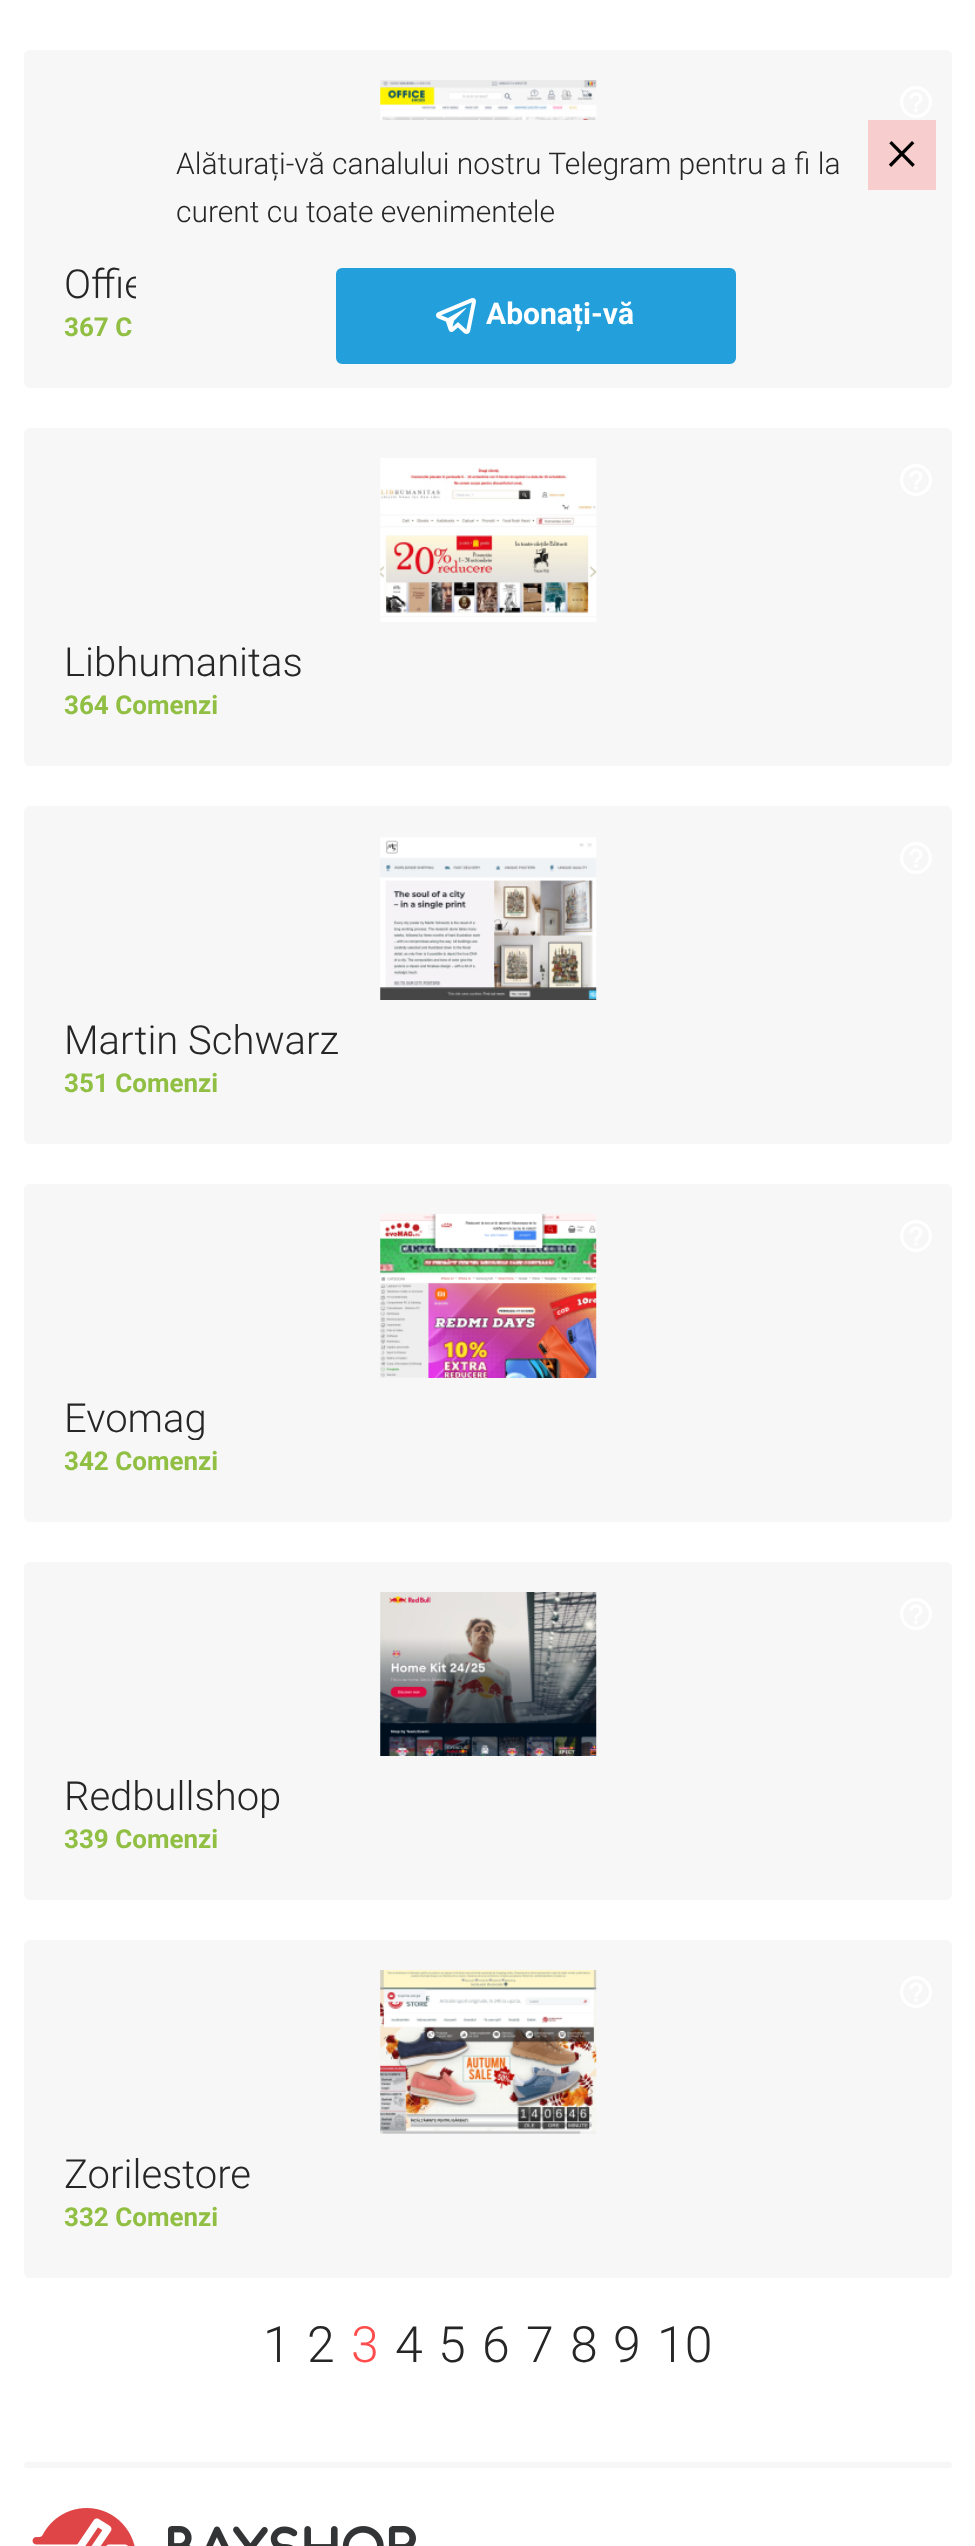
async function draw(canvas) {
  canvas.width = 975
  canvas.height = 2546
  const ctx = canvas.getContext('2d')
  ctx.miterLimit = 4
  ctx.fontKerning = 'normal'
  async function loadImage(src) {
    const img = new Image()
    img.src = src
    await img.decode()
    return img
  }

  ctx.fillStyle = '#fff'
  ctx.fillRect(0, 0, 975, 2546)
  ctx.fillStyle = '#f7f7f7'
  ctx.beginPath()
  ctx.roundRect(24, 50, 928, 338, 6)
  ctx.fill()
  ctx.font = '300 40px Roboto'
  ctx.fillStyle = '#262626'
  ctx.fillText('Offie', 64, 298)
  ctx.fillStyle = '#f7f7f7'
  ctx.fillRect(136, 276, 8, 23)
  ctx.font = '300 30px Roboto'
  ctx.fillStyle = '#262626'
  ctx.fillText('Alăturați-vă canalului nostru Telegram pentru a fi la', 176, 174)
  ctx.fillText('curent cu toate evenimentele', 176, 222)
  ctx.fillStyle = '#23a0dc'
  ctx.beginPath()
  ctx.roundRect(339, 271, 394, 90, 3)
  ctx.fill()
  ctx.strokeStyle = '#23a0dc'
  ctx.lineWidth = 6
  ctx.stroke()
  ctx.drawImage(await loadImage('image0.png'), 436, 298, 40, 36)
  ctx.font = 'bold 30px Roboto'
  ctx.fillStyle = '#fff'
  ctx.fillText('Abonați-vă', 486, 324)
  ctx.fillStyle = '#f8cdcd'
  ctx.fillRect(868, 120, 68, 70)
  ctx.font = '300 61px Roboto'
  ctx.fillStyle = '#000'
  ctx.fillText('×', 886, 170)
  ctx.drawImage(await loadImage('image1.png'), 900, 86, 32, 32)
  ctx.drawImage(await loadImage('image2.png'), 380, 80, 217, 40)
  ctx.font = 'bold 26px Roboto'
  ctx.fillStyle = '#90bf43'
  ctx.fillText('367 C', 64, 336)
  ctx.fillStyle = '#f7f7f7'
  ctx.beginPath()
  ctx.roundRect(24, 428, 928, 338, 6)
  ctx.fill()
  ctx.drawImage(await loadImage('image1.png'), 900, 464, 32, 32)
  ctx.drawImage(await loadImage('image3.png'), 380, 458, 217, 164)
  ctx.font = '300 40px Roboto'
  ctx.fillStyle = '#262626'
  ctx.fillText('Libhumanitas', 64, 676)
  ctx.font = 'bold 26px Roboto'
  ctx.fillStyle = '#90bf43'
  ctx.fillText('364 Comenzi', 64, 714)
  ctx.fillStyle = '#f7f7f7'
  ctx.beginPath()
  ctx.roundRect(24, 806, 928, 338, 6)
  ctx.fill()
  ctx.drawImage(await loadImage('image1.png'), 900, 842, 32, 32)
  ctx.drawImage(await loadImage('image4.png'), 380, 837, 217, 163)
  ctx.font = '300 40px Roboto'
  ctx.fillStyle = '#262626'
  ctx.fillText('Martin Schwarz', 64, 1054)
  ctx.font = 'bold 26px Roboto'
  ctx.fillStyle = '#90bf43'
  ctx.fillText('351 Comenzi', 64, 1092)
  ctx.fillStyle = '#f7f7f7'
  ctx.beginPath()
  ctx.roundRect(24, 1184, 928, 338, 6)
  ctx.fill()
  ctx.drawImage(await loadImage('image1.png'), 900, 1220, 32, 32)
  ctx.drawImage(await loadImage('image5.png'), 380, 1214, 217, 164)
  ctx.save()
  ctx.beginPath()
  ctx.rect(64, 1398, 154, 42)
  ctx.clip()
  ctx.font = '300 40px Roboto'
  ctx.fillStyle = '#262626'
  ctx.fillText('Evomag', 64, 1432)
  ctx.restore()
  ctx.fillStyle = '#90bf43'
  ctx.fillText('342 Comenzi', 64, 1470)
  ctx.fillStyle = '#f7f7f7'
  ctx.beginPath()
  ctx.roundRect(24, 1562, 928, 338, 6)
  ctx.fill()
  ctx.drawImage(await loadImage('image1.png'), 900, 1598, 32, 32)
  ctx.drawImage(await loadImage('image6.png'), 380, 1592, 217, 164)
  ctx.save()
  ctx.beginPath()
  ctx.rect(64, 1776, 218, 42)
  ctx.clip()
  ctx.font = '300 40px Roboto'
  ctx.fillStyle = '#262626'
  ctx.fillText('Redbullshop', 64, 1810)
  ctx.restore()
  ctx.fillStyle = '#90bf43'
  ctx.fillText('339 Comenzi', 64, 1848)
  ctx.fillStyle = '#f7f7f7'
  ctx.beginPath()
  ctx.roundRect(24, 1940, 928, 338, 6)
  ctx.fill()
  ctx.drawImage(await loadImage('image1.png'), 900, 1976, 32, 32)
  ctx.drawImage(await loadImage('image7.png'), 380, 1970, 217, 164)
  ctx.font = '300 40px Roboto'
  ctx.fillStyle = '#262626'
  ctx.fillText('Zorilestore', 64, 2188)
  ctx.font = 'bold 26px Roboto'
  ctx.fillStyle = '#90bf43'
  ctx.fillText('332 Comenzi', 64, 2226)
  ctx.font = '300 50px Roboto'
  ctx.fillStyle = '#262626'
  ctx.fillText('1', 263, 2362)
  ctx.fillText('2', 307, 2362)
  ctx.fillStyle = '#ff4c4c'
  ctx.fillText('3', 351, 2362)
  ctx.fillStyle = '#262626'
  ctx.fillText('4', 395, 2362)
  ctx.fillText('5', 438, 2362)
  ctx.fillText('6', 482, 2362)
  ctx.fillText('7', 526, 2362)
  ctx.fillText('8', 570, 2362)
  ctx.fillText('9', 613, 2362)
  ctx.fillText('10', 657, 2362)
  ctx.fillStyle = '#f7f7f7'
  ctx.beginPath()
  ctx.roundRect(24, 2462, 928, 6, 3)
  ctx.fill()
  ctx.drawImage(await loadImage('image8.png'), 32, 2508, 384, 38)
}

draw(document.querySelector('canvas'))
